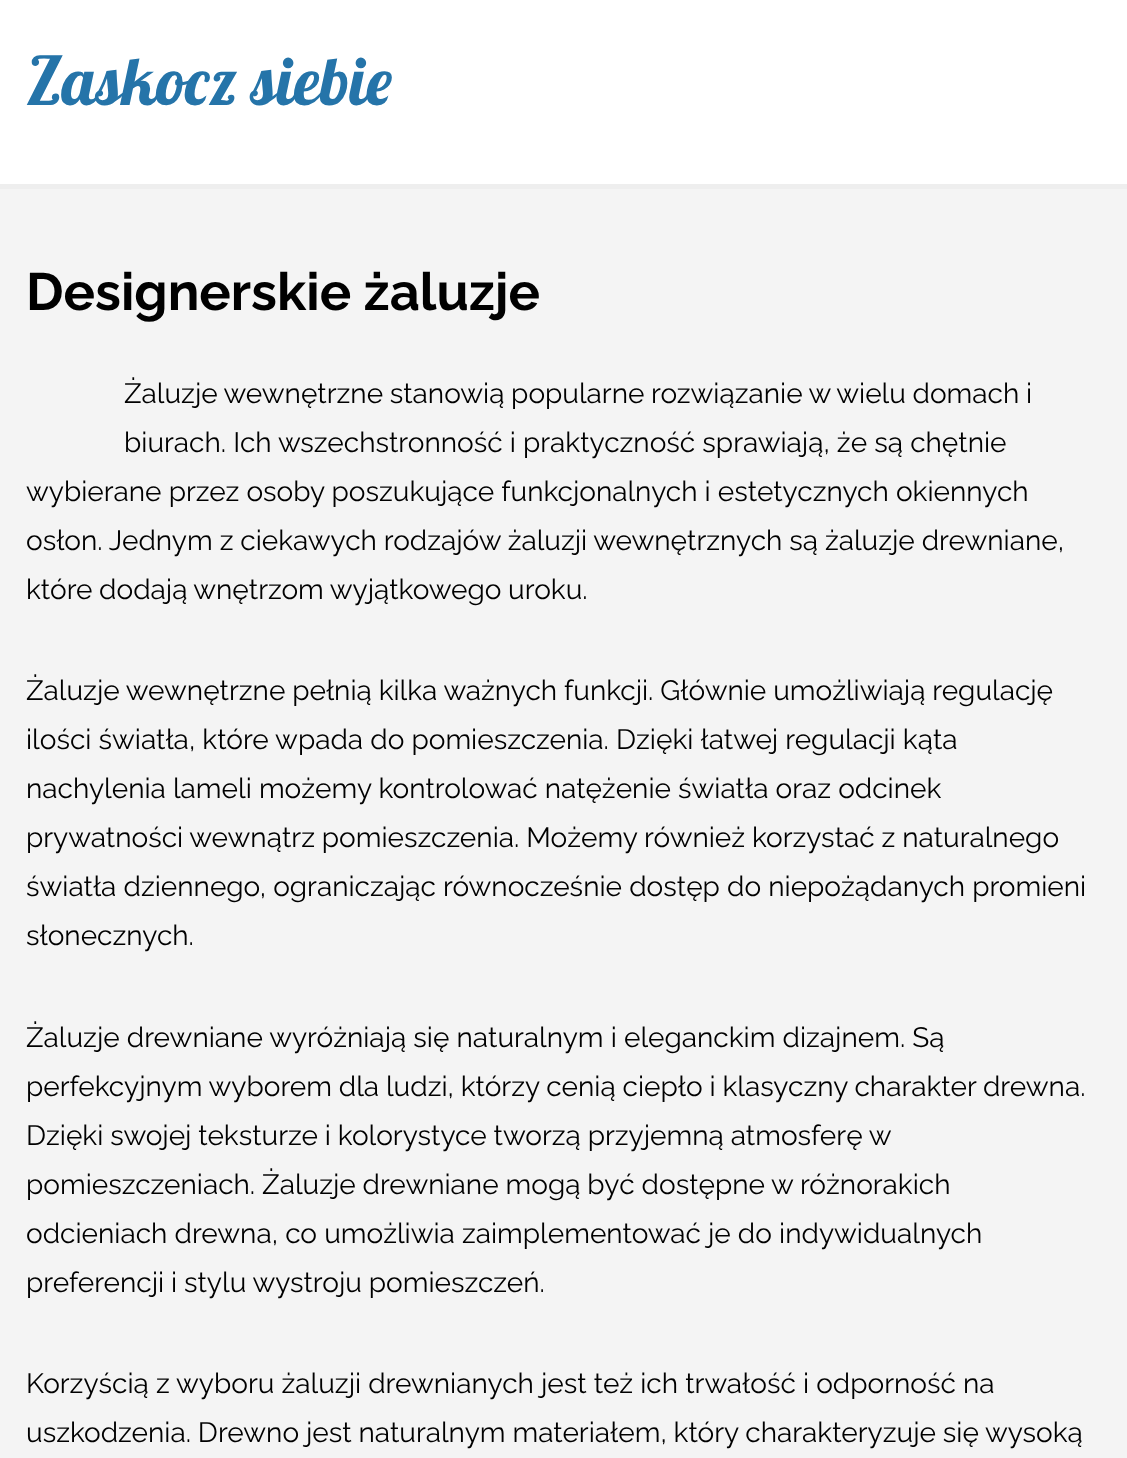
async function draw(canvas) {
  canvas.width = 1127
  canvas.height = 1458
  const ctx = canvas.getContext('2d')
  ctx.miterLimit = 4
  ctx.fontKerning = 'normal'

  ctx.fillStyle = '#f4f4f4'
  ctx.fillRect(0, 0, 1127, 1458)
  ctx.fillStyle = '#fff'
  ctx.fillRect(0, 0, 1127, 184)
  ctx.fillStyle = '#eee'
  ctx.fillRect(0, 184, 1127, 5)
  ctx.font = '66.5px Lobster'
  ctx.fillStyle = '#2574a9'
  ctx.fillText('Zaskocz siebie', 26, 105)
  ctx.font = 'bold 52.5px Raleway'
  ctx.fillStyle = '#000'
  ctx.fillText('Designerskie żaluzje', 26, 310)
  ctx.wordSpacing = '-0.5px'
  ctx.font = '28px Raleway'
  ctx.fillText('Żaluzje wewnętrzne stanowią popularne rozwiązanie w wielu domach i', 124, 403)
  ctx.wordSpacing = '0px'
  ctx.fillText('biurach. Ich wszechstronność i praktyczność sprawiają, że są chętnie', 124, 452)
  ctx.fillText('wybierane przez osoby poszukujące funkcjonalnych i estetycznych okiennych', 26, 501)
  ctx.wordSpacing = '-0.25px'
  ctx.fillText('osłon. Jednym z ciekawych rodzajów żaluzji wewnętrznych są żaluzje drewniane,', 26, 550)
  ctx.wordSpacing = '-0.5px'
  ctx.fillText('które dodają wnętrzom wyjątkowego uroku.', 26, 599)
  ctx.wordSpacing = '-0.25px'
  ctx.fillText('Żaluzje wewnętrzne pełnią kilka ważnych funkcji. Głównie umożliwiają regulację', 26, 700)
  ctx.wordSpacing = '0px'
  ctx.fillText('ilości światła, które wpada do pomieszczenia. Dzięki łatwej regulacji kąta', 26, 749)
  ctx.fillText('nachylenia lameli możemy kontrolować natężenie światła oraz odcinek', 26, 798)
  ctx.wordSpacing = '-0.25px'
  ctx.fillText('prywatności wewnątrz pomieszczenia. Możemy również korzystać z naturalnego', 26, 847)
  ctx.wordSpacing = '0px'
  ctx.fillText('światła dziennego, ograniczając równocześnie dostęp do niepożądanych promieni', 26, 896)
  ctx.fillText('słonecznych.', 26, 945)
  ctx.fillText('Żaluzje drewniane wyróżniają się naturalnym i eleganckim dizajnem. Są', 26, 1047)
  ctx.wordSpacing = '-0.25px'
  ctx.fillText('perfekcyjnym wyborem dla ludzi, którzy cenią ciepło i klasyczny charakter drewna.', 26, 1096)
  ctx.fillText('Dzięki swojej teksturze i kolorystyce tworzą przyjemną atmosferę w', 26, 1145)
  ctx.fillText('pomieszczeniach. Żaluzje drewniane mogą być dostępne w różnorakich', 26, 1194)
  ctx.wordSpacing = '0px'
  ctx.fillText('odcieniach drewna, co umożliwia zaimplementować je do indywidualnych', 26, 1243)
  ctx.wordSpacing = '-0.25px'
  ctx.fillText('preferencji i stylu wystroju pomieszczeń.', 26, 1292)
  ctx.wordSpacing = '0px'
  ctx.fillText('Korzyścią z wyboru żaluzji drewnianych jest też ich trwałość i odporność na', 26, 1393)
  ctx.wordSpacing = '-0.25px'
  ctx.fillText('uszkodzenia. Drewno jest naturalnym materiałem, który charakteryzuje się wysoką', 26, 1442)
}

draw(document.querySelector('canvas'))
